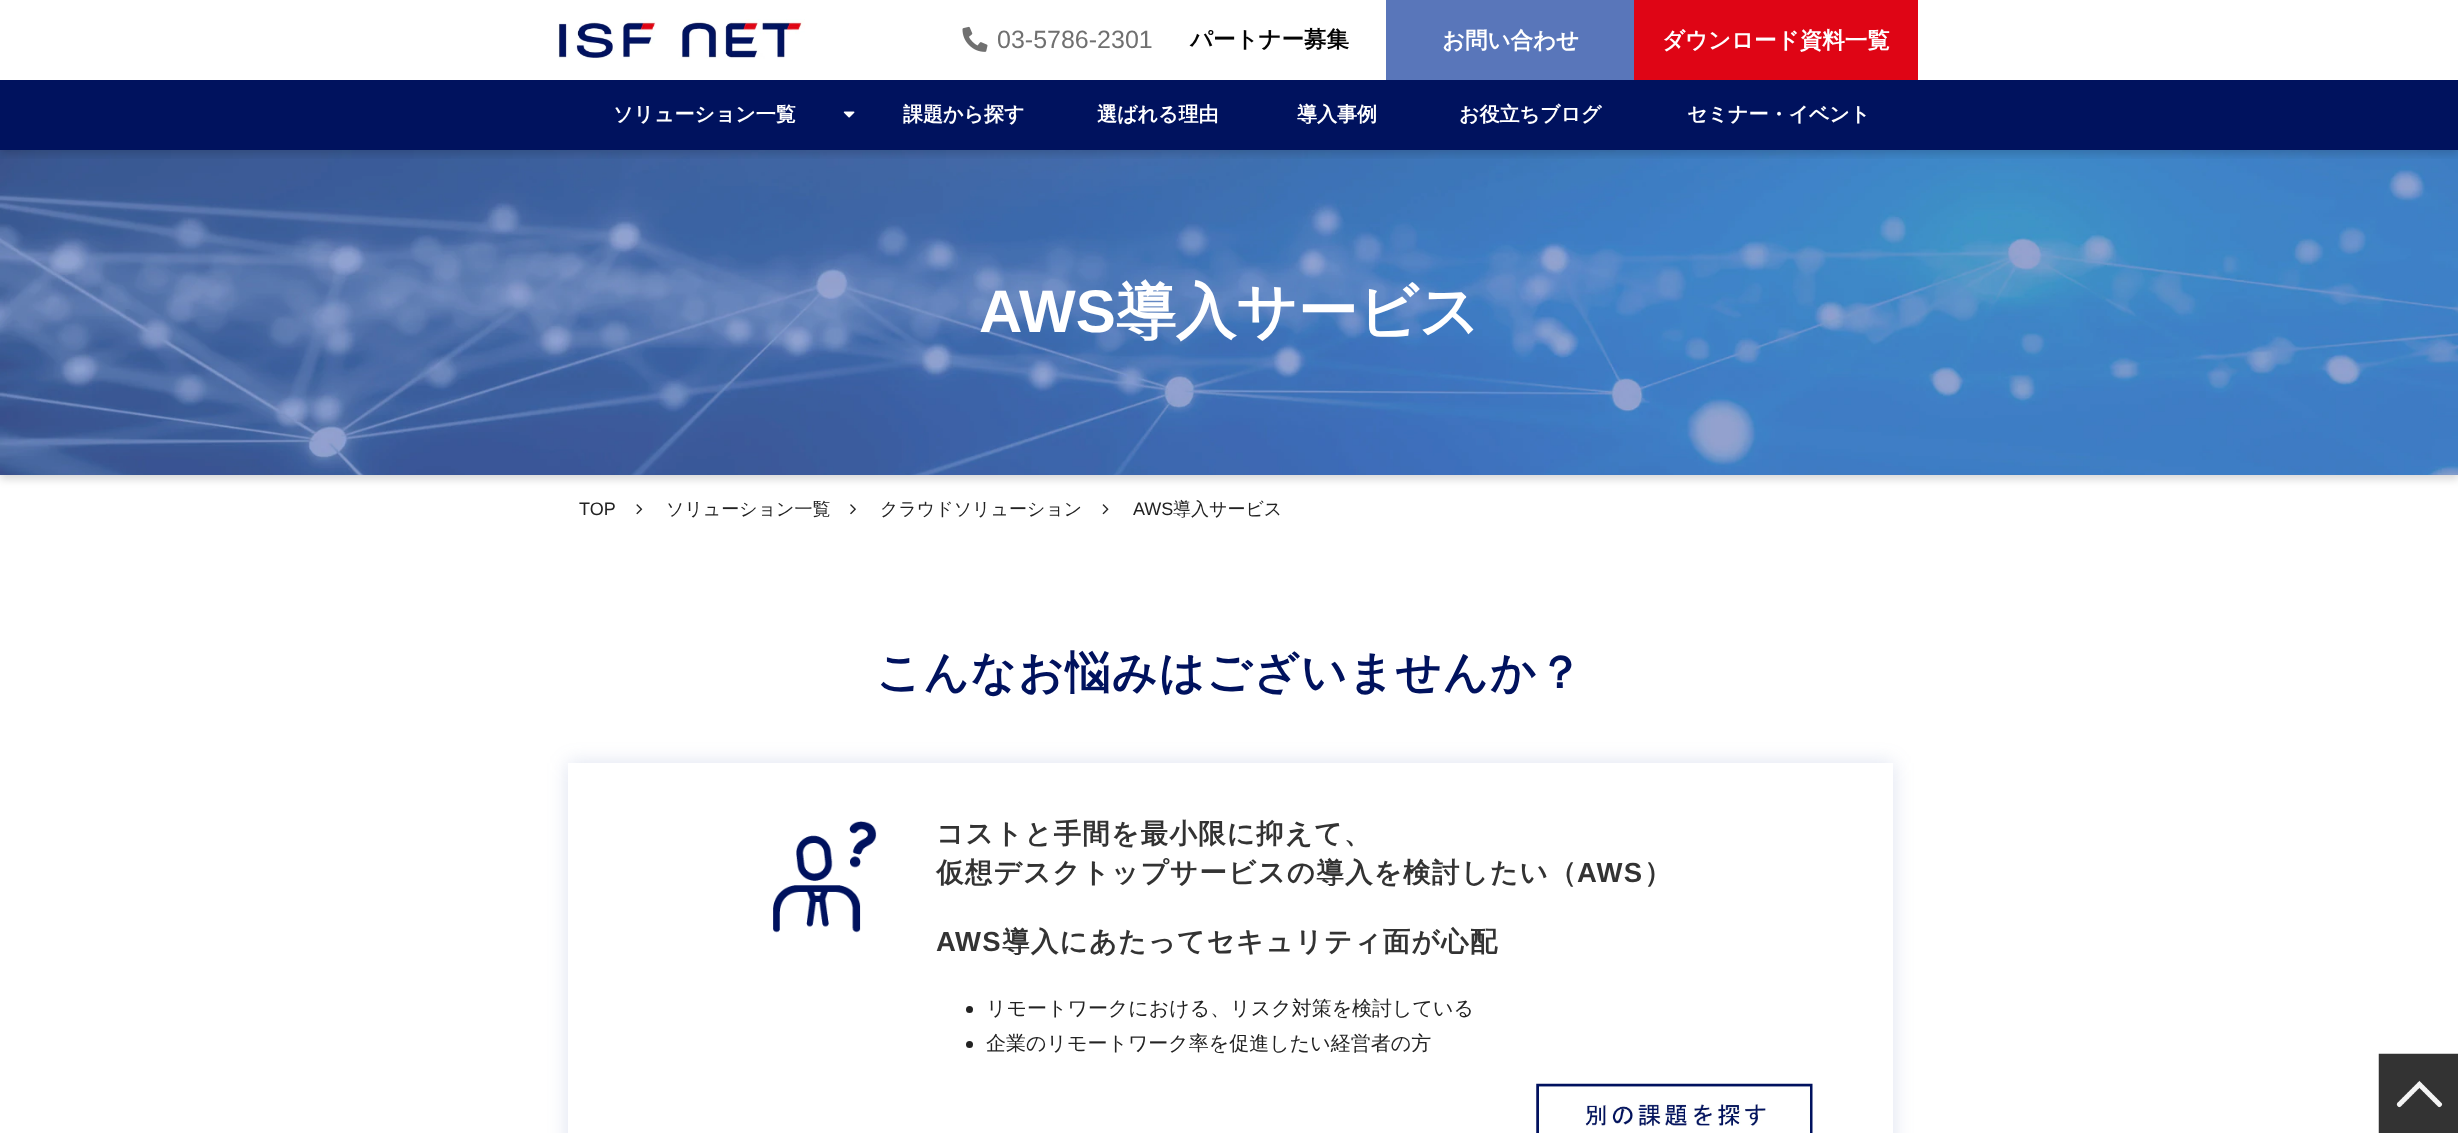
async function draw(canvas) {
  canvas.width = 2458
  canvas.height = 1133
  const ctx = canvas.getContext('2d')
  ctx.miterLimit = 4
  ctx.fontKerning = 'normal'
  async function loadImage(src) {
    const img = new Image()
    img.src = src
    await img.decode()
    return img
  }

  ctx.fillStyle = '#fff'
  ctx.fillRect(0, 0, 2458, 1133)
  ctx.fillStyle = '#00000029'
  ctx.filter = 'blur(4px)'
  ctx.beginPath()
  ctx.rect(0, 154, 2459, 325)
  ctx.fill()
  ctx.filter = 'none'
  ctx.drawImage(await loadImage('image3.png'), 0, 150, 2458, 325)
  ctx.save()
  ctx.beginPath()
  ctx.rect(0, 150, 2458, 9)
  ctx.clip()
  ctx.filter = 'blur(4px)'
  ctx.beginPath()
  ctx.rect(0, 4, 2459, 150)
  ctx.fill()
  ctx.filter = 'none'
  ctx.restore()
  ctx.drawImage(await loadImage('image0.png'), 558, 19, 247, 40)
  ctx.drawImage(await loadImage('image1.png'), 962, 26, 26, 26)
  ctx.font = '25px Liberation Sans'
  ctx.fillStyle = '#707070'
  ctx.fillText('03-5786-2301', 997, 48)
  ctx.font = 'bold 22.5px WenQuanYi Zen Hei'
  ctx.fillStyle = '#040404'
  ctx.fillText('パートナー募集', 1190, 47)
  ctx.strokeStyle = '#5976ba'
  ctx.lineWidth = 3
  ctx.strokeRect(1387.5, 1.5, 245, 77)
  ctx.fillStyle = '#5976ba'
  ctx.fillRect(1389, 3, 242, 74)
  ctx.fillStyle = '#fff'
  ctx.fillText('お問い合わせ', 1442, 48)
  ctx.fillStyle = '#df0515'
  ctx.fillRect(1634, 0, 284, 80)
  ctx.fillStyle = '#fff'
  ctx.fillText('ダウンロード資料一覧', 1662, 48)
  ctx.fillStyle = '#00125e'
  ctx.fillRect(0, 80, 2458, 70)
  ctx.font = 'bold 20px WenQuanYi Zen Hei'
  ctx.fillStyle = '#fff'
  ctx.fillText('ソリューション一覧', 613, 121)
  ctx.drawImage(await loadImage('image2.png'), 843, 111, 12, 7)
  ctx.fillText('課題から探す', 903, 121)
  ctx.fillText('選ばれる理由', 1097, 121)
  ctx.fillText('導入事例', 1297, 121)
  ctx.fillText('お役立ちブログ', 1459, 121)
  ctx.fillText('セミナー・イベント', 1687, 121)
  ctx.font = 'bold 60px Liberation Sans'
  ctx.fillText('AWS', 979, 332)
  ctx.font = 'bold 60px WenQuanYi Zen Hei'
  ctx.fillText('導入サービス', 1116, 332)
  ctx.font = '18px Liberation Sans'
  ctx.fillStyle = '#222'
  ctx.fillText('TOP', 579, 515)
  ctx.drawImage(await loadImage('image4.png'), 636, 504, 7, 11)
  ctx.font = '500 18px WenQuanYi Zen Hei'
  ctx.fillText('ソリューション一覧', 666, 515)
  ctx.drawImage(await loadImage('image5.png'), 850, 504, 6, 11)
  ctx.fillText('クラウドソリューション', 880, 515)
  ctx.drawImage(await loadImage('image6.png'), 1102, 504, 7, 11)
  ctx.font = '18px Liberation Sans'
  ctx.fillText('AWS', 1133, 515)
  ctx.font = '500 18px WenQuanYi Zen Hei'
  ctx.fillText('導入サービス', 1173, 515)
  ctx.letterSpacing = '1.25px'
  ctx.font = 'bold 45px WenQuanYi Zen Hei'
  ctx.fillStyle = '#00125e'
  ctx.fillText('こんなお悩みはございませんか？', 876, 688)
  ctx.fillStyle = '#4f6bb133'
  ctx.filter = 'blur(10px)'
  ctx.beginPath()
  ctx.rect(568, 763, 1325, 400)
  ctx.fill()
  ctx.filter = 'none'
  ctx.fillStyle = '#fff'
  ctx.fillRect(568, 763, 1325, 370)
  ctx.drawImage(await loadImage('image7.png'), 773, 821, 104, 112)
  ctx.font = 'bold 27.5px WenQuanYi Zen Hei'
  ctx.fillStyle = '#333'
  ctx.fillText('コストと手間を最小限に抑えて、', 936, 843)
  ctx.fillText('仮想デスクトップサービスの導入を検討したい（', 936, 882)
  ctx.font = 'bold 27.5px Liberation Sans'
  ctx.fillText('AWS', 1577, 882)
  ctx.font = 'bold 27.5px WenQuanYi Zen Hei'
  ctx.fillText('）', 1644, 882)
  ctx.font = 'bold 27.5px Liberation Sans'
  ctx.fillText('A', 936, 951)
  ctx.fillText('WS', 955, 951)
  ctx.font = 'bold 27.5px WenQuanYi Zen Hei'
  ctx.fillText('導入にあたってセキュリティ面が心配', 1002, 951)
  ctx.fillStyle = '#222'
  ctx.beginPath()
  ctx.arc(969.5, 1009.5, 3.5, 0, 2 * Math.PI)
  ctx.fill()
  ctx.letterSpacing = '0px'
  ctx.font = '500 20px WenQuanYi Zen Hei'
  ctx.fillText('リモートワークにおける、リスク対策を検討している', 986, 1015)
  ctx.beginPath()
  ctx.arc(969.5, 1044.5, 3.5, 0, 2 * Math.PI)
  ctx.fill()
  ctx.fillText('企業のリモートワーク率を促進したい経営者の方', 986, 1050)
  ctx.drawImage(await loadImage('image8.png'), 1536, 1083, 277, 50)
  ctx.drawImage(await loadImage('image9.png'), 2378, 1053, 80, 80)
}

draw(document.querySelector('canvas'))
